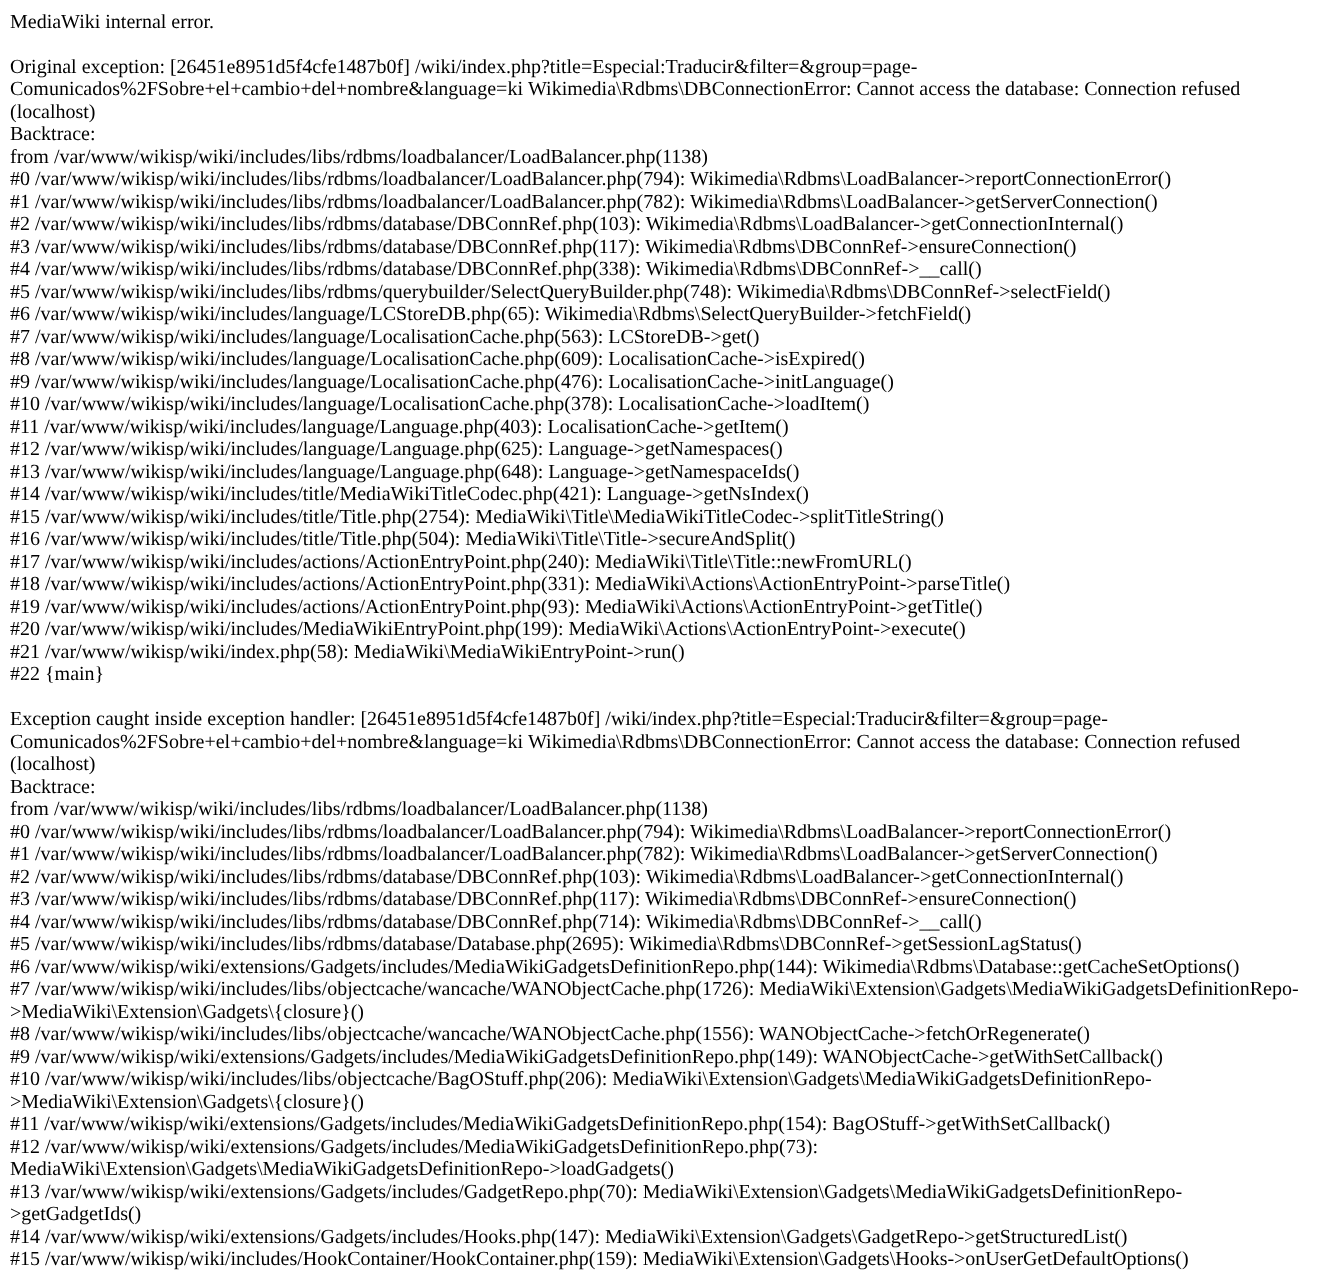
async function draw(canvas) {
  canvas.width = 1320
  canvas.height = 1283
  const ctx = canvas.getContext('2d')
  ctx.miterLimit = 4
  ctx.fontKerning = 'normal'

  ctx.fillStyle = '#fff'
  ctx.fillRect(0, 0, 1320, 1283)
  ctx.font = '20px Liberation Serif'
  ctx.fillStyle = '#000'
  ctx.fillText('MediaWiki internal error.', 10, 28)
  ctx.fillText('Original exception: [26451e8951d5f4cfe1487b0f] /wiki/index.php?title=Especial:Traducir&filter=&group=page-', 10, 73)
  ctx.fillText('Comunicados%2FSobre+el+cambio+del+nombre&language=ki', 10, 95)
  ctx.fillText('Wikimedia\\Rdbms\\DBConnectionError: Cannot access the database: Connection refused', 528, 95)
  ctx.fillText('(localhost)', 10, 118)
  ctx.fillText('Backtrace:', 10, 140)
  ctx.fillText('from /var/www/wikisp/wiki/includes/libs/rdbms/loadbalancer/LoadBalancer.php(1138)', 10, 163)
  ctx.fillText('#0 /var/www/wikisp/wiki/includes/libs/rdbms/loadbalancer/LoadBalancer.php(794): Wikimedia\\Rdbms\\LoadBalancer->reportConnectionError()', 10, 185)
  ctx.fillText('#1 /var/www/wikisp/wiki/includes/libs/rdbms/loadbalancer/LoadBalancer.php(782): Wikimedia\\Rdbms\\LoadBalancer->getServerConnection()', 10, 208)
  ctx.fillText('#2 /var/www/wikisp/wiki/includes/libs/rdbms/database/DBConnRef.php(103): Wikimedia\\Rdbms\\LoadBalancer->getConnectionInternal()', 10, 230)
  ctx.fillText('#3 /var/www/wikisp/wiki/includes/libs/rdbms/database/DBConnRef.php(117): Wikimedia\\Rdbms\\DBConnRef->ensureConnection()', 10, 253)
  ctx.fillText('#4 /var/www/wikisp/wiki/includes/libs/rdbms/database/DBConnRef.php(338): Wikimedia\\Rdbms\\DBConnRef->__call()', 10, 275)
  ctx.fillText('#5 /var/www/wikisp/wiki/includes/libs/rdbms/querybuilder/SelectQueryBuilder.php(748): Wikimedia\\Rdbms\\DBConnRef->selectField()', 10, 298)
  ctx.fillText('#6 /var/www/wikisp/wiki/includes/language/LCStoreDB.php(65): Wikimedia\\Rdbms\\SelectQueryBuilder->fetchField()', 10, 320)
  ctx.fillText('#7 /var/www/wikisp/wiki/includes/language/LocalisationCache.php(563): LCStoreDB->get()', 10, 343)
  ctx.fillText('#8 /var/www/wikisp/wiki/includes/language/LocalisationCache.php(609): LocalisationCache->isExpired()', 10, 365)
  ctx.fillText('#9 /var/www/wikisp/wiki/includes/language/LocalisationCache.php(476): LocalisationCache->initLanguage()', 10, 388)
  ctx.fillText('#10 /var/www/wikisp/wiki/includes/language/LocalisationCache.php(378): LocalisationCache->loadItem()', 10, 410)
  ctx.fillText('#11 /var/www/wikisp/wiki/includes/language/Language.php(403): LocalisationCache->getItem()', 10, 433)
  ctx.fillText('#12 /var/www/wikisp/wiki/includes/language/Language.php(625): Language->getNamespaces()', 10, 455)
  ctx.fillText('#13 /var/www/wikisp/wiki/includes/language/Language.php(648): Language->getNamespaceIds()', 10, 478)
  ctx.fillText('#14 /var/www/wikisp/wiki/includes/title/MediaWikiTitleCodec.php(421): Language->getNsIndex()', 10, 500)
  ctx.fillText('#15 /var/www/wikisp/wiki/includes/title/Title.php(2754): MediaWiki\\Title\\MediaWikiTitleCodec->splitTitleString()', 10, 523)
  ctx.fillText('#16 /var/www/wikisp/wiki/includes/title/Title.php(504): MediaWiki\\Title\\Title->secureAndSplit()', 10, 545)
  ctx.fillText('#17 /var/www/wikisp/wiki/includes/actions/ActionEntryPoint.php(240): MediaWiki\\Title\\Title::newFromURL()', 10, 568)
  ctx.fillText('#18 /var/www/wikisp/wiki/includes/actions/ActionEntryPoint.php(331): MediaWiki\\Actions\\ActionEntryPoint->parseTitle()', 10, 590)
  ctx.fillText('#19 /var/www/wikisp/wiki/includes/actions/ActionEntryPoint.php(93): MediaWiki\\Actions\\ActionEntryPoint->getTitle()', 10, 613)
  ctx.fillText('#20 /var/www/wikisp/wiki/includes/MediaWikiEntryPoint.php(199): MediaWiki\\Actions\\ActionEntryPoint->execute()', 10, 635)
  ctx.fillText('#21 /var/www/wikisp/wiki/index.php(58): MediaWiki\\MediaWikiEntryPoint->run()', 10, 658)
  ctx.fillText('#22 {main}', 10, 680)
  ctx.fillText('Exception caught inside exception handler: [26451e8951d5f4cfe1487b0f] /wiki/index.php?title=Especial:Traducir&filter=&group=page-', 10, 725)
  ctx.fillText('Comunicados%2FSobre+el+cambio+del+nombre&language=ki', 10, 748)
  ctx.fillText('Wikimedia\\Rdbms\\DBConnectionError: Cannot access the database: Connection refused', 528, 748)
  ctx.fillText('(localhost)', 10, 770)
  ctx.fillText('Backtrace:', 10, 793)
  ctx.fillText('from /var/www/wikisp/wiki/includes/libs/rdbms/loadbalancer/LoadBalancer.php(1138)', 10, 815)
  ctx.fillText('#0 /var/www/wikisp/wiki/includes/libs/rdbms/loadbalancer/LoadBalancer.php(794): Wikimedia\\Rdbms\\LoadBalancer->reportConnectionError()', 10, 838)
  ctx.fillText('#1 /var/www/wikisp/wiki/includes/libs/rdbms/loadbalancer/LoadBalancer.php(782): Wikimedia\\Rdbms\\LoadBalancer->getServerConnection()', 10, 860)
  ctx.fillText('#2 /var/www/wikisp/wiki/includes/libs/rdbms/database/DBConnRef.php(103): Wikimedia\\Rdbms\\LoadBalancer->getConnectionInternal()', 10, 883)
  ctx.fillText('#3 /var/www/wikisp/wiki/includes/libs/rdbms/database/DBConnRef.php(117): Wikimedia\\Rdbms\\DBConnRef->ensureConnection()', 10, 905)
  ctx.fillText('#4 /var/www/wikisp/wiki/includes/libs/rdbms/database/DBConnRef.php(714): Wikimedia\\Rdbms\\DBConnRef->__call()', 10, 928)
  ctx.fillText('#5 /var/www/wikisp/wiki/includes/libs/rdbms/database/Database.php(2695): Wikimedia\\Rdbms\\DBConnRef->getSessionLagStatus()', 10, 950)
  ctx.fillText('#6 /var/www/wikisp/wiki/extensions/Gadgets/includes/MediaWikiGadgetsDefinitionRepo.php(144): Wikimedia\\Rdbms\\Database::getCacheSetOptions()', 10, 973)
  ctx.fillText('#7 /var/www/wikisp/wiki/includes/libs/objectcache/wancache/WANObjectCache.php(1726): MediaWiki\\Extension\\Gadgets\\MediaWikiGadgetsDefinitionRepo-', 10, 995)
  ctx.fillText('>MediaWiki\\Extension\\Gadgets\\{closure}()', 10, 1018)
  ctx.fillText('#8 /var/www/wikisp/wiki/includes/libs/objectcache/wancache/WANObjectCache.php(1556): WANObjectCache->fetchOrRegenerate()', 10, 1040)
  ctx.fillText('#9 /var/www/wikisp/wiki/extensions/Gadgets/includes/MediaWikiGadgetsDefinitionRepo.php(149): WANObjectCache->getWithSetCallback()', 10, 1063)
  ctx.fillText('#10 /var/www/wikisp/wiki/includes/libs/objectcache/BagOStuff.php(206): MediaWiki\\Extension\\Gadgets\\MediaWikiGadgetsDefinitionRepo-', 10, 1085)
  ctx.fillText('>MediaWiki\\Extension\\Gadgets\\{closure}()', 10, 1108)
  ctx.fillText('#11 /var/www/wikisp/wiki/extensions/Gadgets/includes/MediaWikiGadgetsDefinitionRepo.php(154): BagOStuff->getWithSetCallback()', 10, 1130)
  ctx.fillText('#12 /var/www/wikisp/wiki/extensions/Gadgets/includes/MediaWikiGadgetsDefinitionRepo.php(73):', 10, 1153)
  ctx.fillText('MediaWiki\\Extension\\Gadgets\\MediaWikiGadgetsDefinitionRepo->loadGadgets()', 10, 1175)
  ctx.fillText('#13 /var/www/wikisp/wiki/extensions/Gadgets/includes/GadgetRepo.php(70): MediaWiki\\Extension\\Gadgets\\MediaWikiGadgetsDefinitionRepo-', 10, 1198)
  ctx.fillText('>getGadgetIds()', 10, 1220)
  ctx.fillText('#14 /var/www/wikisp/wiki/extensions/Gadgets/includes/Hooks.php(147): MediaWiki\\Extension\\Gadgets\\GadgetRepo->getStructuredList()', 10, 1243)
  ctx.fillText('#15 /var/www/wikisp/wiki/includes/HookContainer/HookContainer.php(159): MediaWiki\\Extension\\Gadgets\\Hooks->onUserGetDefaultOptions()', 10, 1265)
}

draw(document.querySelector('canvas'))
